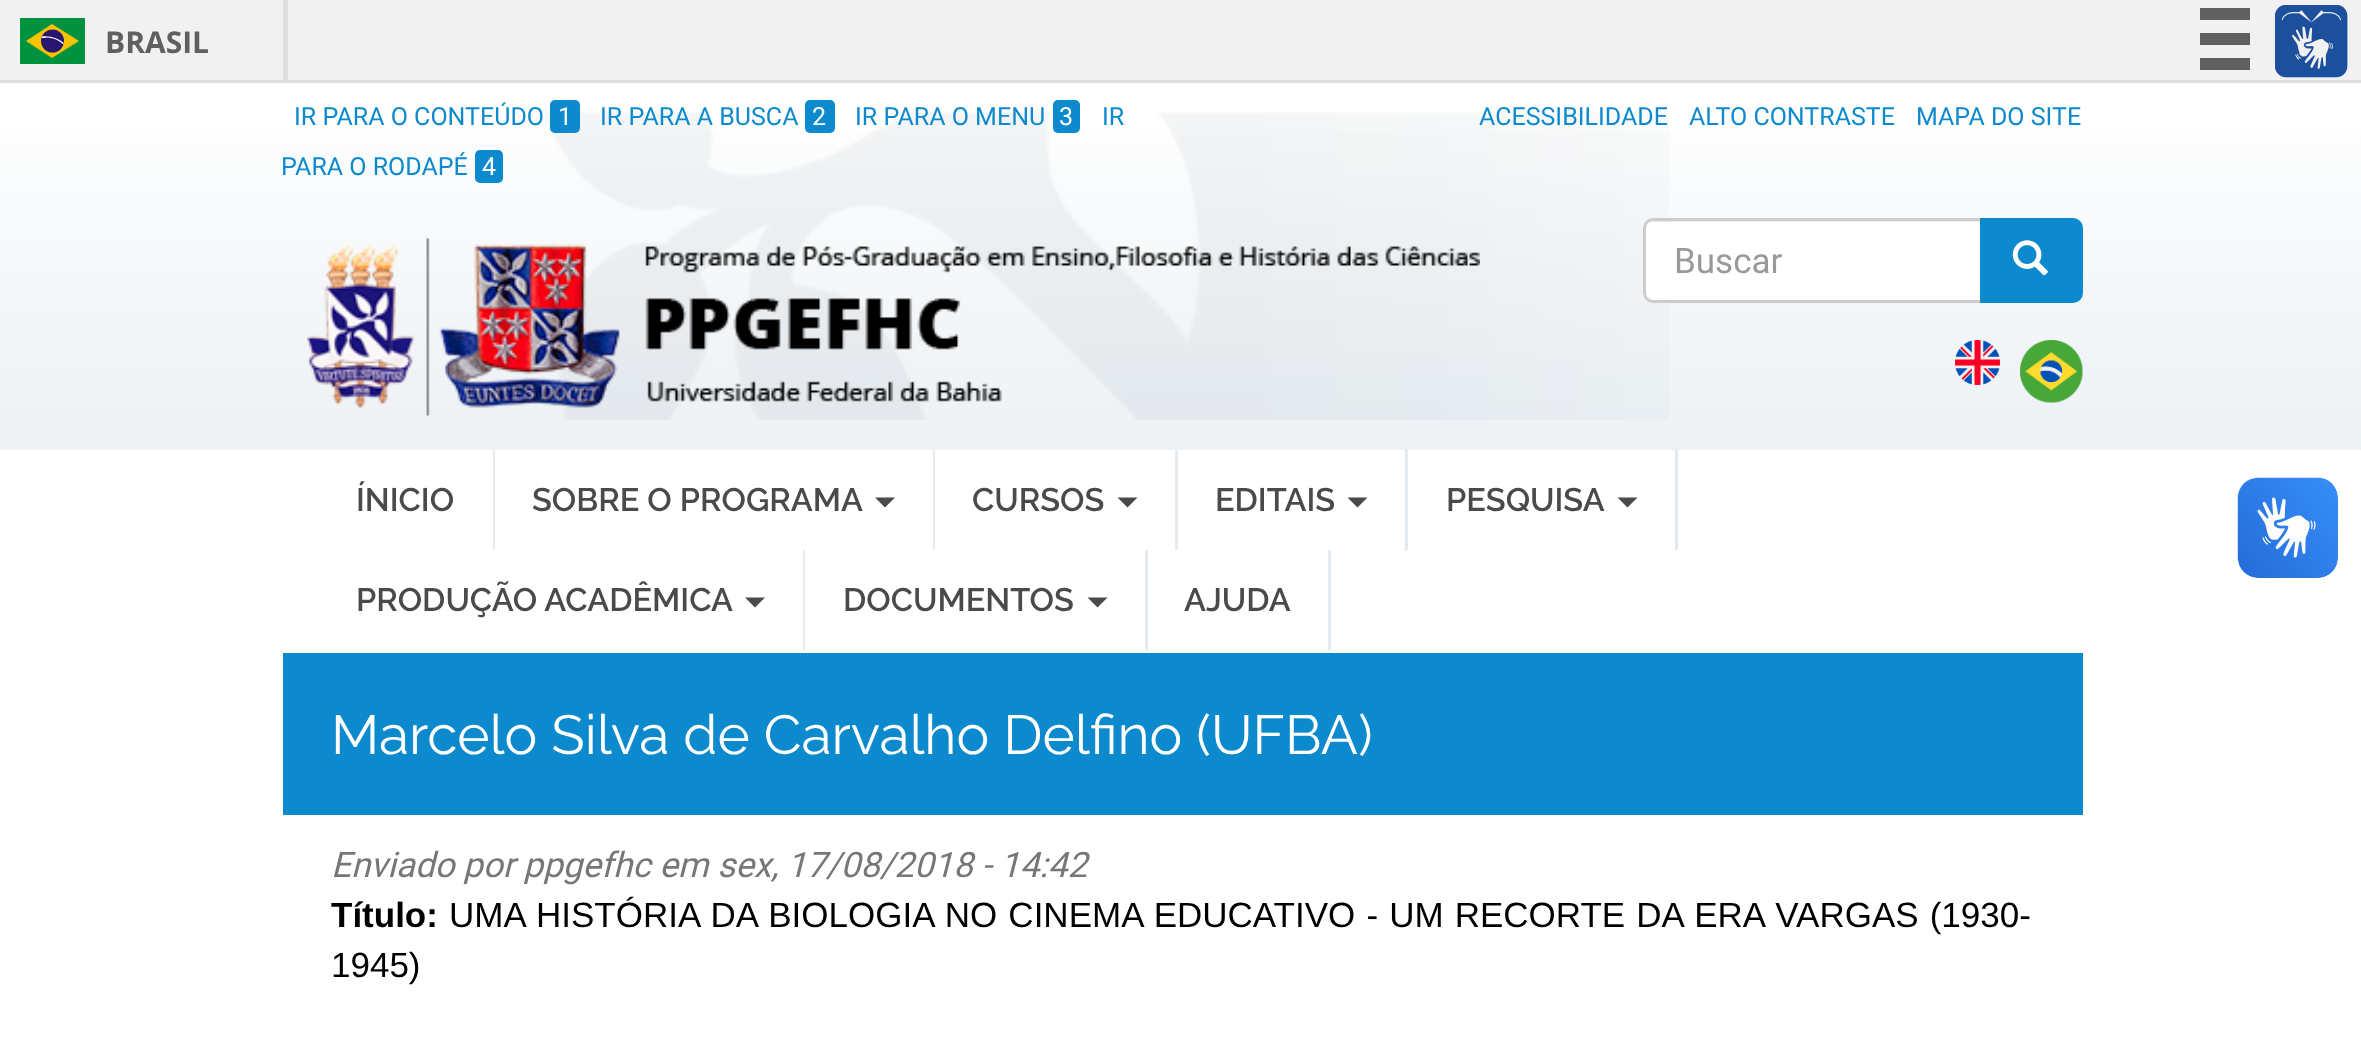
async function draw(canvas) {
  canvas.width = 2361
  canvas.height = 1053
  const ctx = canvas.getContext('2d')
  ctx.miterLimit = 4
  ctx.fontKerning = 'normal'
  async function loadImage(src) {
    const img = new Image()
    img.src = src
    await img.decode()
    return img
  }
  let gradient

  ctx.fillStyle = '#fff'
  ctx.fillRect(0, 0, 2361, 1053)
  ctx.fillStyle = '#f1f1f1'
  ctx.fillRect(0, 0, 2361, 80)
  ctx.fillStyle = '#dfdfdf'
  ctx.fillRect(0, 80, 2361, 3)
  ctx.fillRect(283, 0, 5, 80)
  ctx.fillStyle = '#00923f'
  ctx.fillRect(20, 18, 65, 46)
  ctx.fillStyle = '#f8c300'
  ctx.beginPath()
  ctx.moveTo(52, 24)
  ctx.lineTo(26, 41)
  ctx.lineTo(52, 58)
  ctx.lineTo(79, 41)
  ctx.closePath()
  ctx.fill()
  ctx.fillStyle = '#28166f'
  ctx.beginPath()
  ctx.arc(52.5, 41, 11.5, 0, 2 * Math.PI)
  ctx.fill()
  ctx.fillStyle = '#fff'
  ctx.beginPath()
  ctx.moveTo(45.5, 37.5)
  ctx.bezierCurveTo(52.5, 37.5, 58.5, 40, 63.5, 44.5)
  ctx.lineTo(63.5, 42.5)
  ctx.bezierCurveTo(57.5, 38, 50, 35.5, 42, 36.5)
  ctx.lineTo(41.5, 38)
  ctx.lineTo(45.5, 38)
  ctx.closePath()
  ctx.fill()
  ctx.font = 'bold 30px Open Sans'
  ctx.fillStyle = '#606060'
  ctx.fillText('BRASIL', 105, 53)
  ctx.fillRect(2200, 8, 50, 12)
  ctx.fillRect(2200, 33, 50, 12)
  ctx.fillRect(2200, 58, 50, 12)
  ctx.drawImage(await loadImage('image0.png'), 2275, 5, 73, 73)
  gradient = ctx.createLinearGradient(1181, 82, 1181, 450)
  gradient.addColorStop(0, '#fff')
  gradient.addColorStop(1, '#ecf1f5')
  ctx.fillStyle = gradient
  ctx.fillRect(0, 130, 2361, 320)
  ctx.drawImage(await loadImage('image1.png'), 544, 112, 1125, 308)
  ctx.font = '25px Roboto'
  ctx.fillStyle = '#0d8acd'
  ctx.fillText('IR PARA O CONTEÚDO', 294, 125)
  ctx.beginPath()
  ctx.roundRect(550, 100, 30, 33, 5)
  ctx.fill()
  ctx.fillStyle = '#fff'
  ctx.fillText('1', 558, 125)
  ctx.fillStyle = '#0d8acd'
  ctx.fillText('IR PARA A BUSCA', 600, 125)
  ctx.beginPath()
  ctx.roundRect(805, 100, 30, 33, 5)
  ctx.fill()
  ctx.fillStyle = '#fff'
  ctx.fillText('2', 812, 125)
  ctx.fillStyle = '#0d8acd'
  ctx.fillText('IR PARA O MENU', 855, 125)
  ctx.beginPath()
  ctx.roundRect(1053, 100, 27, 33, 5)
  ctx.fill()
  ctx.fillStyle = '#fff'
  ctx.fillText('3', 1059, 125)
  ctx.fillStyle = '#0d8acd'
  ctx.fillText('IR', 1102, 125)
  ctx.fillText('PARA O RODAPÉ', 281, 175)
  ctx.beginPath()
  ctx.roundRect(475, 150, 28, 33, 5)
  ctx.fill()
  ctx.fillStyle = '#fff'
  ctx.fillText('4', 482, 175)
  ctx.fillStyle = '#0d8acd'
  ctx.fillText('ACESSIBILIDADE', 1479, 125)
  ctx.fillText('ALTO CONTRASTE', 1689, 125)
  ctx.fillText('MAPA DO SITE', 1916, 125)
  ctx.drawImage(await loadImage('image2.png'), 307, 237, 1173, 179)
  ctx.fillStyle = '#fff'
  ctx.beginPath()
  ctx.roundRect(1643, 218, 340, 85, [10, 0, 0, 10])
  ctx.fill()
  ctx.fillStyle = '#ececec'
  ctx.beginPath()
  ctx.moveTo(1652, 222)
  ctx.lineTo(1980, 222)
  ctx.lineTo(1980, 220)
  ctx.lineTo(1653, 220)
  ctx.bezierCurveTo(1647, 220, 1645, 225, 1645, 230)
  ctx.bezierCurveTo(1645, 226, 1648, 222, 1652, 222)
  ctx.closePath()
  ctx.fill()
  ctx.beginPath()
  ctx.roundRect(1644.5, 219.5, 337, 82, [8.5, 0, 0, 8.5])
  ctx.strokeStyle = '#ccc'
  ctx.lineWidth = 3
  ctx.stroke()
  ctx.font = '35px Roboto'
  ctx.fillStyle = '#999'
  ctx.fillText('Buscar', 1674, 273)
  ctx.fillStyle = '#0d8acd'
  ctx.beginPath()
  ctx.roundRect(1981.5, 219.5, 100, 82, [0, 8.5, 8.5, 0])
  ctx.fill()
  ctx.strokeStyle = '#0d8acd'
  ctx.stroke()
  ctx.drawImage(await loadImage('image3.png'), 2012, 240, 36, 36)
  ctx.drawImage(await loadImage('image4.png'), 1955, 340, 45, 45)
  ctx.drawImage(await loadImage('image5.png'), 2020, 340, 63, 63)
  ctx.fillStyle = '#e5eaee'
  ctx.fillRect(493, 450, 2, 100)
  ctx.font = '600 32.5px Raleway'
  ctx.fillStyle = '#4a4a4c'
  ctx.fillText('ÍNICIO', 356, 511)
  ctx.fillStyle = '#e5eaee'
  ctx.fillRect(933, 450, 2, 100)
  ctx.fillStyle = '#4a4a4c'
  ctx.fillText('SOBRE O PROGRAMA', 532, 511)
  ctx.beginPath()
  ctx.moveTo(875, 497.5)
  ctx.lineTo(895, 497.5)
  ctx.lineTo(885, 507.5)
  ctx.closePath()
  ctx.fill()
  ctx.fillStyle = '#e5eaee'
  ctx.fillRect(1175, 450, 3, 100)
  ctx.fillStyle = '#4a4a4c'
  ctx.fillText('CURSOS', 972, 511)
  ctx.beginPath()
  ctx.moveTo(1117.5, 497.5)
  ctx.lineTo(1137.5, 497.5)
  ctx.lineTo(1127.5, 507.5)
  ctx.closePath()
  ctx.fill()
  ctx.fillStyle = '#e5eaee'
  ctx.fillRect(1405, 450, 3, 100)
  ctx.fillStyle = '#4a4a4c'
  ctx.fillText('EDITAIS', 1215, 511)
  ctx.beginPath()
  ctx.moveTo(1347.5, 497.5)
  ctx.lineTo(1367.5, 497.5)
  ctx.lineTo(1357.5, 507.5)
  ctx.closePath()
  ctx.fill()
  ctx.fillStyle = '#e5eaee'
  ctx.fillRect(1675, 450, 3, 100)
  ctx.fillStyle = '#4a4a4c'
  ctx.fillText('PESQUISA', 1446, 511)
  ctx.beginPath()
  ctx.moveTo(1617.5, 497.5)
  ctx.lineTo(1637.5, 497.5)
  ctx.lineTo(1627.5, 507.5)
  ctx.closePath()
  ctx.fill()
  ctx.fillStyle = '#e5eaee'
  ctx.fillRect(803, 550, 2, 100)
  ctx.fillStyle = '#4a4a4c'
  ctx.fillText('PRODUÇÃO ACADÊMICA', 356, 611)
  ctx.beginPath()
  ctx.moveTo(745, 597.5)
  ctx.lineTo(765, 597.5)
  ctx.lineTo(755, 607.5)
  ctx.closePath()
  ctx.fill()
  ctx.fillStyle = '#e5eaee'
  ctx.fillRect(1145, 550, 3, 100)
  ctx.fillStyle = '#4a4a4c'
  ctx.fillText('DOCUMENTOS', 843, 611)
  ctx.beginPath()
  ctx.moveTo(1087.5, 597.5)
  ctx.lineTo(1107.5, 597.5)
  ctx.lineTo(1097.5, 607.5)
  ctx.closePath()
  ctx.fill()
  ctx.fillStyle = '#e5eaee'
  ctx.fillRect(1328, 550, 3, 100)
  ctx.fillStyle = '#4a4a4c'
  ctx.fillText('AJUDA', 1184, 611)
  ctx.drawImage(await loadImage('image6.png'), 2237, 477, 101, 101)
  ctx.drawImage(await loadImage('image7.png'), 2238, 478, 100, 100)
  ctx.fillStyle = '#0d8acd'
  ctx.fillRect(283, 653, 1800, 162)
  ctx.font = '55px Raleway'
  ctx.fillStyle = '#fff'
  ctx.fillText('Marcelo Silva de Carvalho Delfino (UFBA)', 331, 754)
  ctx.font = 'italic 35px Roboto'
  ctx.fillStyle = '#777'
  ctx.fillText('Enviado por ppgefhc em sex, 17/08/2018 - 14:42', 331, 877)
  ctx.font = 'bold 35px Liberation Sans'
  ctx.fillStyle = '#000'
  ctx.fillText('Título:', 331, 927)
  ctx.wordSpacing = '1.4px'
  ctx.font = '35px Liberation Sans'
  ctx.fillText('UMA HISTÓRIA DA BIOLOGIA NO CINEMA EDUCATIVO - UM RECORTE DA ERA VARGAS (1930-', 449, 927)
  ctx.wordSpacing = '0px'
  ctx.fillText('1945)', 331, 977)
}

draw(document.querySelector('canvas'))
